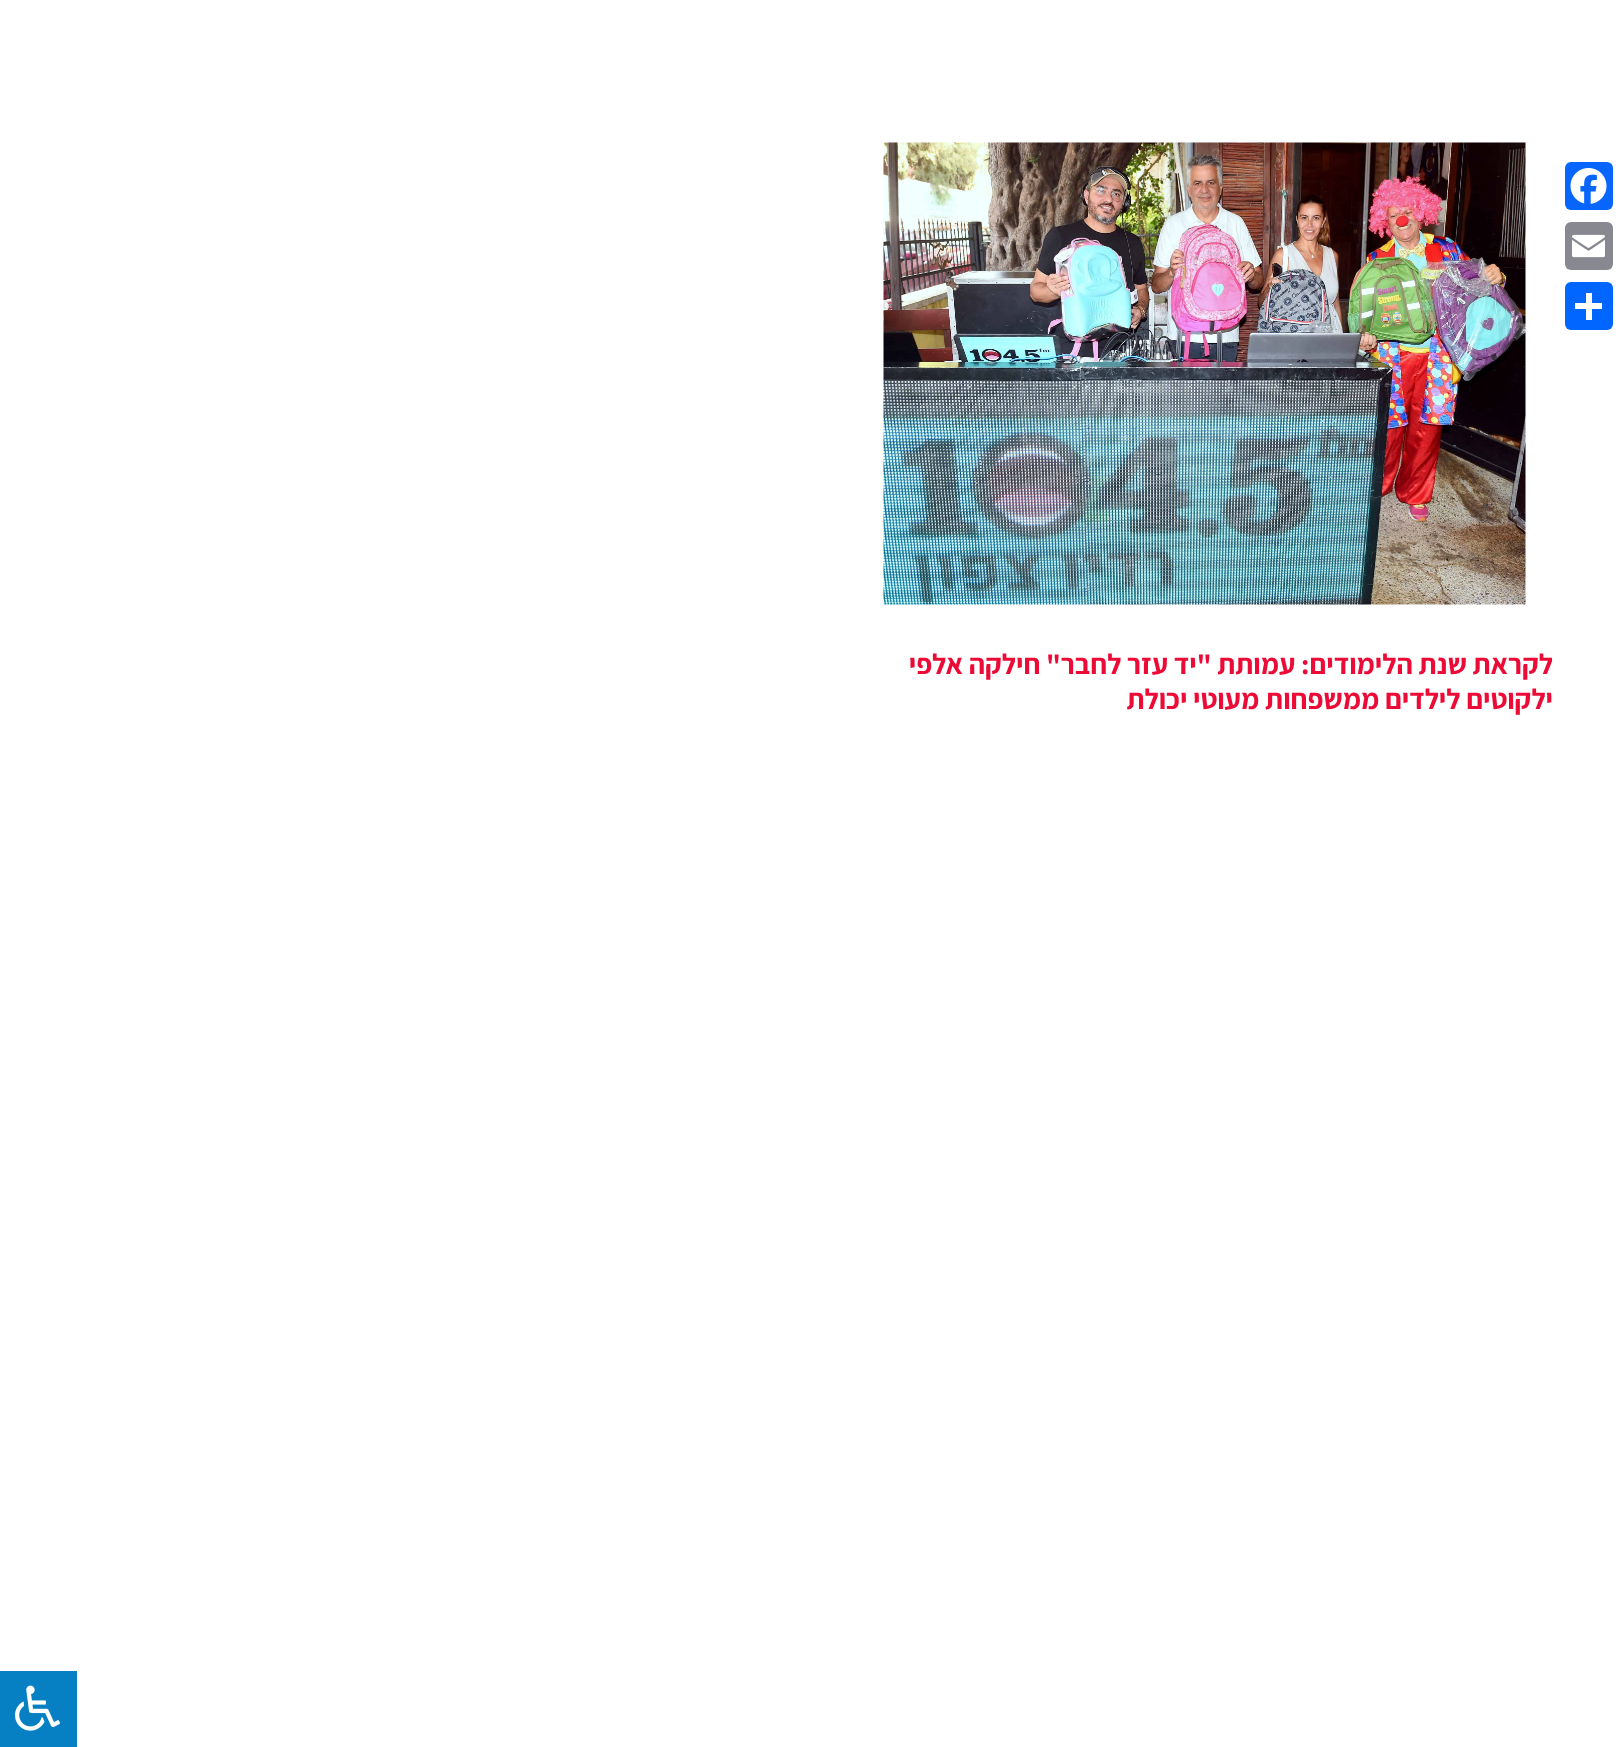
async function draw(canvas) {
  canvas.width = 1624
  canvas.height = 1747
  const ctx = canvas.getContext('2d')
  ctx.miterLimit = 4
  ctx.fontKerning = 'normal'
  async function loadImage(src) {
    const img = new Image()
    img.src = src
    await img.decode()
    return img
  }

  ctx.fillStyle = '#fff'
  ctx.fillRect(0, 0, 1624, 1747)
  ctx.fillStyle = '#0866ff'
  ctx.beginPath()
  ctx.roundRect(1565, 162, 48, 48, 6)
  ctx.fill()
  ctx.drawImage(await loadImage('image0.png'), 1570, 168, 37, 36)
  ctx.fillStyle = '#888990'
  ctx.beginPath()
  ctx.roundRect(1565, 222, 48, 48, 6)
  ctx.fill()
  ctx.drawImage(await loadImage('image1.png'), 1572, 234, 33, 24)
  ctx.fillStyle = '#0166ff'
  ctx.beginPath()
  ctx.roundRect(1565, 282, 48, 48, 6)
  ctx.fill()
  ctx.fillStyle = '#fff'
  ctx.fillRect(1586, 293, 6, 27)
  ctx.fillRect(1575, 303, 27, 6)
  ctx.drawImage(await loadImage('image2.png'), 883, 142, 643, 463)
  ctx.direction = 'rtl'
  ctx.font = 'bold 28.5px Assistant'
  ctx.fillStyle = '#ec0b37'
  ctx.fillText('לקראת שנת הלימודים: עמותת "יד עזר לחבר" חילקה אלפי', 1553, 674)
  ctx.fillText('ילקוטים לילדים ממשפחות מעוטי יכולת', 1553, 709)
  ctx.fillStyle = '#0780c3'
  ctx.fillRect(0, 1671, 77, 76)
  ctx.drawImage(await loadImage('image3.png'), 15, 1685, 45, 46)
}

draw(document.querySelector('canvas'))
